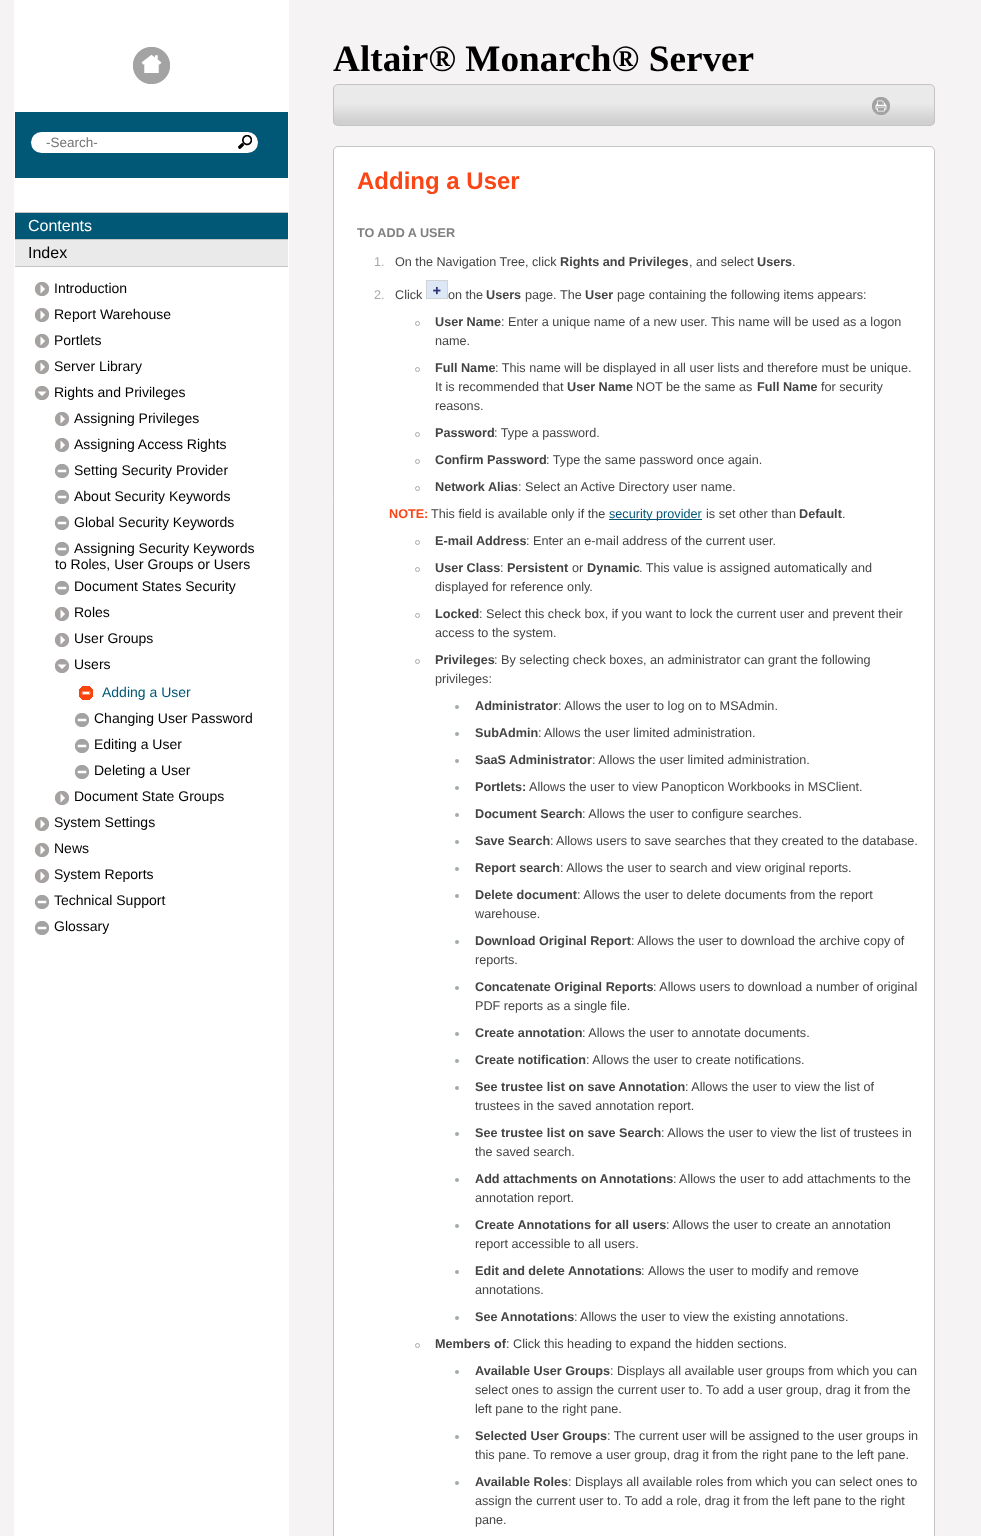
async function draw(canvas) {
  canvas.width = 981
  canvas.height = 1536
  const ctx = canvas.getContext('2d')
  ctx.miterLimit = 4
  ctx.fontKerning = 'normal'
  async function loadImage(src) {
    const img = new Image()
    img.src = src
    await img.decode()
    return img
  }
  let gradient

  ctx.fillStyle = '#f5f3f4'
  ctx.fillRect(0, 0, 981, 1536)
  ctx.fillStyle = '#fff'
  ctx.fillRect(14, 0, 275, 1536)
  ctx.drawImage(await loadImage('image0.png'), 133, 47, 37, 37)
  ctx.fillStyle = '#005776'
  ctx.fillRect(15, 112, 273, 66)
  ctx.fillStyle = '#fff'
  ctx.beginPath()
  ctx.roundRect(31, 132, 227, 21, 10.5)
  ctx.fill()
  ctx.font = '13.5px Liberation Sans'
  ctx.fillStyle = '#757575'
  ctx.fillText('-Search-', 46, 147)
  ctx.drawImage(await loadImage('image1.png'), 238, 135, 14, 14)
  ctx.fillStyle = '#c4c4c4'
  ctx.fillRect(15, 212, 273, 1)
  ctx.fillStyle = '#005776'
  ctx.fillRect(15, 213, 273, 26)
  ctx.fillStyle = '#c4c4c4'
  ctx.fillRect(15, 239, 273, 1)
  ctx.font = '16px Liberation Sans'
  ctx.fillStyle = '#fff'
  ctx.fillText('Contents', 28, 231)
  ctx.fillStyle = '#eaeaea'
  ctx.fillRect(15, 240, 273, 26)
  ctx.fillStyle = '#c4c4c4'
  ctx.fillRect(15, 266, 273, 1)
  ctx.fillStyle = '#000'
  ctx.fillText('Index', 28, 258)
  ctx.drawImage(await loadImage('image2.png'), 35, 282, 14, 14)
  ctx.font = '14px Liberation Sans'
  ctx.fillText('Introduction', 54, 293)
  ctx.drawImage(await loadImage('image2.png'), 35, 308, 14, 14)
  ctx.fillText('Report Warehouse', 54, 319)
  ctx.drawImage(await loadImage('image2.png'), 35, 334, 14, 14)
  ctx.fillText('Portlets', 54, 345)
  ctx.drawImage(await loadImage('image2.png'), 35, 360, 14, 14)
  ctx.fillText('Server Library', 54, 371)
  ctx.drawImage(await loadImage('image3.png'), 35, 386, 14, 14)
  ctx.fillText('Rights and Privileges', 54, 397)
  ctx.drawImage(await loadImage('image2.png'), 55, 412, 14, 14)
  ctx.fillText('Assigning Privileges', 74, 423)
  ctx.drawImage(await loadImage('image2.png'), 55, 438, 14, 14)
  ctx.fillText('Assigning Access Rights', 74, 449)
  ctx.drawImage(await loadImage('image4.png'), 55, 464, 14, 14)
  ctx.fillText('Setting Security Provider', 74, 475)
  ctx.drawImage(await loadImage('image4.png'), 55, 490, 14, 14)
  ctx.fillText('About Security Keywords', 74, 501)
  ctx.drawImage(await loadImage('image4.png'), 55, 516, 14, 14)
  ctx.fillText('Global Security Keywords', 74, 527)
  ctx.drawImage(await loadImage('image4.png'), 55, 542, 14, 14)
  ctx.fillText('Assigning Security Keywords', 74, 553)
  ctx.fillText('to Roles, User Groups or Users', 55, 569)
  ctx.drawImage(await loadImage('image4.png'), 55, 581, 14, 14)
  ctx.fillText('Document States Security', 74, 591)
  ctx.drawImage(await loadImage('image2.png'), 55, 607, 14, 14)
  ctx.fillText('Roles', 74, 617)
  ctx.drawImage(await loadImage('image2.png'), 55, 633, 14, 14)
  ctx.fillText('User Groups', 74, 643)
  ctx.drawImage(await loadImage('image3.png'), 55, 659, 14, 14)
  ctx.fillText('Users', 74, 669)
  ctx.drawImage(await loadImage('image5.png'), 79, 686, 14, 14)
  ctx.fillStyle = '#005776'
  ctx.fillText('Adding a User', 102, 697)
  ctx.drawImage(await loadImage('image4.png'), 75, 713, 14, 14)
  ctx.fillStyle = '#000'
  ctx.fillText('Changing User Password', 94, 723)
  ctx.drawImage(await loadImage('image4.png'), 75, 739, 14, 14)
  ctx.fillText('Editing a User', 94, 749)
  ctx.drawImage(await loadImage('image4.png'), 75, 765, 14, 14)
  ctx.fillText('Deleting a User', 94, 775)
  ctx.drawImage(await loadImage('image2.png'), 55, 791, 14, 14)
  ctx.fillText('Document State Groups', 74, 801)
  ctx.drawImage(await loadImage('image2.png'), 35, 817, 14, 14)
  ctx.fillText('System Settings', 54, 827)
  ctx.drawImage(await loadImage('image2.png'), 35, 843, 14, 14)
  ctx.fillText('News', 54, 853)
  ctx.drawImage(await loadImage('image2.png'), 35, 869, 14, 14)
  ctx.fillText('System Reports', 54, 879)
  ctx.drawImage(await loadImage('image4.png'), 35, 895, 14, 14)
  ctx.fillText('Technical Support', 54, 905)
  ctx.drawImage(await loadImage('image4.png'), 35, 921, 14, 14)
  ctx.fillText('Glossary', 54, 931)
  ctx.font = 'bold 37.25px Liberation Serif'
  ctx.fillText('Altair® Monarch® Server', 333, 71)
  ctx.save()
  ctx.beginPath()
  ctx.roundRect(333, 84, 602, 42, 5)
  ctx.clip()
  gradient = ctx.createLinearGradient(334, 125, 334, 85)
  gradient.addColorStop(0.09, '#d0d0d0')
  gradient.addColorStop(0.55, '#eaeaea')
  ctx.fillStyle = gradient
  ctx.fillRect(333, 85, 602, 40)
  ctx.restore()
  ctx.beginPath()
  ctx.roundRect(333.5, 84.5, 601, 41, 4.5)
  ctx.strokeStyle = '#c4c4c4'
  ctx.stroke()
  ctx.drawImage(await loadImage('image6.png'), 872, 97, 18, 18)
  ctx.fillStyle = '#fff'
  ctx.beginPath()
  ctx.roundRect(333.5, 146.5, 601, 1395, 4.5)
  ctx.fill()
  ctx.stroke()
  ctx.font = 'bold 24px Liberation Sans'
  ctx.fillStyle = '#fa4616'
  ctx.fillText('Adding a User', 357, 189)
  ctx.font = 'bold 12.65px Liberation Sans'
  ctx.fillStyle = '#808080'
  ctx.fillText('TO ADD A USER', 357, 237)
  ctx.font = '12.65px Liberation Sans'
  ctx.fillStyle = '#a2aaad'
  ctx.fillText('1.', 374, 266)
  ctx.fillStyle = '#444'
  ctx.fillText('On the Navigation Tree, click', 395, 266)
  ctx.font = 'bold 12.65px Liberation Sans'
  ctx.fillText('Rights and Privileges', 560, 266)
  ctx.font = '12.65px Liberation Sans'
  ctx.fillText(', and select', 689, 266)
  ctx.font = 'bold 12.65px Liberation Sans'
  ctx.fillText('Users', 757, 266)
  ctx.font = '12.65px Liberation Sans'
  ctx.fillText('.', 792, 266)
  ctx.fillStyle = '#a2aaad'
  ctx.fillText('2.', 374, 299)
  ctx.strokeStyle = '#d3d3d3'
  ctx.strokeRect(426.5, 280.5, 21, 18)
  ctx.fillStyle = '#444'
  ctx.fillText('Click', 395, 299)
  ctx.drawImage(await loadImage('image7.png'), 427, 281, 20, 17)
  ctx.fillText('on the', 448, 299)
  ctx.font = 'bold 12.65px Liberation Sans'
  ctx.fillText('Users', 486, 299)
  ctx.font = '12.65px Liberation Sans'
  ctx.fillText('page. The', 525, 299)
  ctx.font = 'bold 12.65px Liberation Sans'
  ctx.fillText('User', 585, 299)
  ctx.font = '12.65px Liberation Sans'
  ctx.fillText('page containing the following items appears:', 617, 299)
  ctx.beginPath()
  ctx.arc(417.5, 323.5, 2, 0, 2 * Math.PI)
  ctx.strokeStyle = '#a2aaad'
  ctx.stroke()
  ctx.font = 'bold 12.65px Liberation Sans'
  ctx.fillText('User Name', 435, 326)
  ctx.font = '12.65px Liberation Sans'
  ctx.fillText(': Enter a unique name of a new user. This name will be used as a logon', 501, 326)
  ctx.fillText('name.', 435, 345)
  ctx.beginPath()
  ctx.arc(417.5, 369.5, 2, 0, 2 * Math.PI)
  ctx.stroke()
  ctx.font = 'bold 12.65px Liberation Sans'
  ctx.fillText('Full Name', 435, 372)
  ctx.font = '12.65px Liberation Sans'
  ctx.fillText(': This name will be displayed in all user lists and therefore must be unique.', 495, 372)
  ctx.fillText('It is recommended that', 435, 391)
  ctx.font = 'bold 12.65px Liberation Sans'
  ctx.fillText('User Name', 567, 391)
  ctx.font = '12.65px Liberation Sans'
  ctx.fillText('NOT be the same as', 636, 391)
  ctx.font = 'bold 12.65px Liberation Sans'
  ctx.fillText('Full Name', 757, 391)
  ctx.font = '12.65px Liberation Sans'
  ctx.fillText('for security', 821, 391)
  ctx.fillText('reasons.', 435, 410)
  ctx.beginPath()
  ctx.arc(417.5, 434.5, 2, 0, 2 * Math.PI)
  ctx.stroke()
  ctx.font = 'bold 12.65px Liberation Sans'
  ctx.fillText('Password', 435, 437)
  ctx.font = '12.65px Liberation Sans'
  ctx.fillText(': Type a password.', 494, 437)
  ctx.beginPath()
  ctx.arc(417.5, 461.5, 2, 0, 2 * Math.PI)
  ctx.stroke()
  ctx.font = 'bold 12.65px Liberation Sans'
  ctx.fillText('Confirm Password', 435, 464)
  ctx.font = '12.65px Liberation Sans'
  ctx.fillText(': Type the same password once again.', 546, 464)
  ctx.beginPath()
  ctx.arc(417.5, 488.5, 2, 0, 2 * Math.PI)
  ctx.stroke()
  ctx.font = 'bold 12.65px Liberation Sans'
  ctx.fillText('Network Alias', 435, 491)
  ctx.font = '12.65px Liberation Sans'
  ctx.fillText(': Select an Active Directory user name.', 518, 491)
  ctx.font = 'bold 12.65px Liberation Sans'
  ctx.fillStyle = '#fa4616'
  ctx.fillText('NOTE:', 389, 518)
  ctx.font = '12.65px Liberation Sans'
  ctx.fillStyle = '#444'
  ctx.fillText('This field is available only if the', 431, 518)
  ctx.fillStyle = '#005776'
  ctx.fillRect(609, 519, 93, 1)
  ctx.fillText('security provider', 609, 518)
  ctx.fillStyle = '#444'
  ctx.fillText('is set other than', 706, 518)
  ctx.font = 'bold 12.65px Liberation Sans'
  ctx.fillText('Default', 799, 518)
  ctx.font = '12.65px Liberation Sans'
  ctx.fillText('.', 842, 518)
  ctx.beginPath()
  ctx.arc(417.5, 542.5, 2, 0, 2 * Math.PI)
  ctx.stroke()
  ctx.font = 'bold 12.65px Liberation Sans'
  ctx.fillText('E-mail Address', 435, 545)
  ctx.font = '12.65px Liberation Sans'
  ctx.fillText(': Enter an e-mail address of the current user.', 526, 545)
  ctx.beginPath()
  ctx.arc(417.5, 569.5, 2, 0, 2 * Math.PI)
  ctx.stroke()
  ctx.font = 'bold 12.65px Liberation Sans'
  ctx.fillText('User Class', 435, 572)
  ctx.font = '12.65px Liberation Sans'
  ctx.fillText(':', 500, 572)
  ctx.font = 'bold 12.65px Liberation Sans'
  ctx.fillText('Persistent', 507, 572)
  ctx.font = '12.65px Liberation Sans'
  ctx.fillText('or', 572, 572)
  ctx.font = 'bold 12.65px Liberation Sans'
  ctx.fillText('Dynamic', 587, 572)
  ctx.font = '12.65px Liberation Sans'
  ctx.fillText('. This value is assigned automatically and', 639, 572)
  ctx.fillText('displayed for reference only.', 435, 591)
  ctx.beginPath()
  ctx.arc(417.5, 615.5, 2, 0, 2 * Math.PI)
  ctx.stroke()
  ctx.font = 'bold 12.65px Liberation Sans'
  ctx.fillText('Locked', 435, 618)
  ctx.font = '12.65px Liberation Sans'
  ctx.fillText(': Select this check box, if you want to lock the current user and prevent their', 479, 618)
  ctx.fillText('access to the system.', 435, 637)
  ctx.beginPath()
  ctx.arc(417.5, 661.5, 2, 0, 2 * Math.PI)
  ctx.stroke()
  ctx.font = 'bold 12.65px Liberation Sans'
  ctx.fillText('Privileges', 435, 664)
  ctx.font = '12.65px Liberation Sans'
  ctx.fillText(': By selecting check boxes, an administrator can grant the following', 494, 664)
  ctx.fillText('privileges:', 435, 683)
  ctx.fillStyle = '#a2aaad'
  ctx.beginPath()
  ctx.arc(457, 707, 2, 0, 2 * Math.PI)
  ctx.fill()
  ctx.font = 'bold 12.65px Liberation Sans'
  ctx.fillStyle = '#444'
  ctx.fillText('Administrator', 475, 710)
  ctx.font = '12.65px Liberation Sans'
  ctx.fillText(': Allows the user to log on to MSAdmin.', 558, 710)
  ctx.fillStyle = '#a2aaad'
  ctx.beginPath()
  ctx.arc(457, 734, 2, 0, 2 * Math.PI)
  ctx.fill()
  ctx.font = 'bold 12.65px Liberation Sans'
  ctx.fillStyle = '#444'
  ctx.fillText('SubAdmin', 475, 737)
  ctx.font = '12.65px Liberation Sans'
  ctx.fillText(':', 538, 737)
  ctx.fillText('Allows the user limited administration.', 544, 737)
  ctx.fillStyle = '#a2aaad'
  ctx.beginPath()
  ctx.arc(457, 761, 2, 0, 2 * Math.PI)
  ctx.fill()
  ctx.font = 'bold 12.65px Liberation Sans'
  ctx.fillStyle = '#444'
  ctx.fillText('SaaS', 475, 764)
  ctx.fillText('Administrator', 509, 764)
  ctx.font = '12.65px Liberation Sans'
  ctx.fillText(': Allows the user limited administration.', 592, 764)
  ctx.fillStyle = '#a2aaad'
  ctx.beginPath()
  ctx.arc(457, 788, 2, 0, 2 * Math.PI)
  ctx.fill()
  ctx.font = 'bold 12.65px Liberation Sans'
  ctx.fillStyle = '#444'
  ctx.fillText('Portlets:', 475, 791)
  ctx.font = '12.65px Liberation Sans'
  ctx.fillText('Allows the user to view Panopticon Workbooks in MSClient.', 529, 791)
  ctx.fillStyle = '#a2aaad'
  ctx.beginPath()
  ctx.arc(457, 815, 2, 0, 2 * Math.PI)
  ctx.fill()
  ctx.font = 'bold 12.65px Liberation Sans'
  ctx.fillStyle = '#444'
  ctx.fillText('Document Search', 475, 818)
  ctx.font = '12.65px Liberation Sans'
  ctx.fillText(': Allows the user to configure searches.', 582, 818)
  ctx.fillStyle = '#a2aaad'
  ctx.beginPath()
  ctx.arc(457, 842, 2, 0, 2 * Math.PI)
  ctx.fill()
  ctx.font = 'bold 12.65px Liberation Sans'
  ctx.fillStyle = '#444'
  ctx.fillText('Save Search', 475, 845)
  ctx.font = '12.65px Liberation Sans'
  ctx.fillText(':', 550, 845)
  ctx.fillText('Allows users to save searches that they created to the database.', 556, 845)
  ctx.fillStyle = '#a2aaad'
  ctx.beginPath()
  ctx.arc(457, 869, 2, 0, 2 * Math.PI)
  ctx.fill()
  ctx.font = 'bold 12.65px Liberation Sans'
  ctx.fillStyle = '#444'
  ctx.fillText('Report search', 475, 872)
  ctx.font = '12.65px Liberation Sans'
  ctx.fillText(': Allows the user to search and view original reports.', 560, 872)
  ctx.fillStyle = '#a2aaad'
  ctx.beginPath()
  ctx.arc(457, 896, 2, 0, 2 * Math.PI)
  ctx.fill()
  ctx.font = 'bold 12.65px Liberation Sans'
  ctx.fillStyle = '#444'
  ctx.fillText('Delete document', 475, 899)
  ctx.font = '12.65px Liberation Sans'
  ctx.fillText(': Allows the user to delete documents from the report', 577, 899)
  ctx.fillText('warehouse.', 475, 918)
  ctx.fillStyle = '#a2aaad'
  ctx.beginPath()
  ctx.arc(457, 942, 2, 0, 2 * Math.PI)
  ctx.fill()
  ctx.font = 'bold 12.65px Liberation Sans'
  ctx.fillStyle = '#444'
  ctx.fillText('Download Original Report', 475, 945)
  ctx.font = '12.65px Liberation Sans'
  ctx.fillText(': Allows the user to download the archive copy of', 631, 945)
  ctx.fillText('reports.', 475, 964)
  ctx.fillStyle = '#a2aaad'
  ctx.beginPath()
  ctx.arc(457, 988, 2, 0, 2 * Math.PI)
  ctx.fill()
  ctx.font = 'bold 12.65px Liberation Sans'
  ctx.fillStyle = '#444'
  ctx.fillText('Concatenate Original Reports', 475, 991)
  ctx.font = '12.65px Liberation Sans'
  ctx.fillText(': Allows users to download a number of original', 653, 991)
  ctx.fillText('PDF reports as a single file.', 475, 1010)
  ctx.fillStyle = '#a2aaad'
  ctx.beginPath()
  ctx.arc(457, 1034, 2, 0, 2 * Math.PI)
  ctx.fill()
  ctx.font = 'bold 12.65px Liberation Sans'
  ctx.fillStyle = '#444'
  ctx.fillText('Create annotation', 475, 1037)
  ctx.font = '12.65px Liberation Sans'
  ctx.fillText(': Allows the user to annotate documents.', 582, 1037)
  ctx.fillStyle = '#a2aaad'
  ctx.beginPath()
  ctx.arc(457, 1061, 2, 0, 2 * Math.PI)
  ctx.fill()
  ctx.font = 'bold 12.65px Liberation Sans'
  ctx.fillStyle = '#444'
  ctx.fillText('Create notification', 475, 1064)
  ctx.font = '12.65px Liberation Sans'
  ctx.fillText(': Allows the user to create notifications.', 586, 1064)
  ctx.fillStyle = '#a2aaad'
  ctx.beginPath()
  ctx.arc(457, 1088, 2, 0, 2 * Math.PI)
  ctx.fill()
  ctx.font = 'bold 12.65px Liberation Sans'
  ctx.fillStyle = '#444'
  ctx.fillText('See trustee list on save Annotation', 475, 1091)
  ctx.font = '12.65px Liberation Sans'
  ctx.fillText(': Allows the user to view the list of', 685, 1091)
  ctx.fillText('trustees in the saved annotation report.', 475, 1110)
  ctx.fillStyle = '#a2aaad'
  ctx.beginPath()
  ctx.arc(457, 1134, 2, 0, 2 * Math.PI)
  ctx.fill()
  ctx.font = 'bold 12.65px Liberation Sans'
  ctx.fillStyle = '#444'
  ctx.fillText('See trustee list on save Search', 475, 1137)
  ctx.font = '12.65px Liberation Sans'
  ctx.fillText(': Allows the user to view the list of trustees in', 661, 1137)
  ctx.fillText('the saved search.', 475, 1156)
  ctx.fillStyle = '#a2aaad'
  ctx.beginPath()
  ctx.arc(457, 1180, 2, 0, 2 * Math.PI)
  ctx.fill()
  ctx.font = 'bold 12.65px Liberation Sans'
  ctx.fillStyle = '#444'
  ctx.fillText('Add attachments on Annotations', 475, 1183)
  ctx.font = '12.65px Liberation Sans'
  ctx.fillText(':', 673, 1183)
  ctx.fillText('Allows the user to add attachments to the', 679, 1183)
  ctx.fillText('annotation report.', 475, 1202)
  ctx.fillStyle = '#a2aaad'
  ctx.beginPath()
  ctx.arc(457, 1226, 2, 0, 2 * Math.PI)
  ctx.fill()
  ctx.font = 'bold 12.65px Liberation Sans'
  ctx.fillStyle = '#444'
  ctx.fillText('Create Annotations for all users', 475, 1229)
  ctx.font = '12.65px Liberation Sans'
  ctx.fillText(': Allows the user to create an annotation', 666, 1229)
  ctx.fillText('report accessible to all users.', 475, 1248)
  ctx.fillStyle = '#a2aaad'
  ctx.beginPath()
  ctx.arc(457, 1272, 2, 0, 2 * Math.PI)
  ctx.fill()
  ctx.font = 'bold 12.65px Liberation Sans'
  ctx.fillStyle = '#444'
  ctx.fillText('Edit and delete Annotations', 475, 1275)
  ctx.font = '12.65px Liberation Sans'
  ctx.fillText(':', 641, 1275)
  ctx.fillText('Allows the user to modify and remove', 648, 1275)
  ctx.fillText('annotations.', 475, 1294)
  ctx.fillStyle = '#a2aaad'
  ctx.beginPath()
  ctx.arc(457, 1318, 2, 0, 2 * Math.PI)
  ctx.fill()
  ctx.font = 'bold 12.65px Liberation Sans'
  ctx.fillStyle = '#444'
  ctx.fillText('See Annotations', 475, 1321)
  ctx.font = '12.65px Liberation Sans'
  ctx.fillText(':', 574, 1321)
  ctx.fillText('Allows the user to view the existing annotations.', 580, 1321)
  ctx.beginPath()
  ctx.arc(417.5, 1345.5, 2, 0, 2 * Math.PI)
  ctx.stroke()
  ctx.font = 'bold 12.65px Liberation Sans'
  ctx.fillText('Members of', 435, 1348)
  ctx.font = '12.65px Liberation Sans'
  ctx.fillText(': Click this heading to expand the hidden sections.', 506, 1348)
  ctx.fillStyle = '#a2aaad'
  ctx.beginPath()
  ctx.arc(457, 1372, 2, 0, 2 * Math.PI)
  ctx.fill()
  ctx.font = 'bold 12.65px Liberation Sans'
  ctx.fillStyle = '#444'
  ctx.fillText('Available User Groups', 475, 1375)
  ctx.font = '12.65px Liberation Sans'
  ctx.fillText(': Displays all available user groups from which you can', 610, 1375)
  ctx.fillText('select ones to assign the current user to. To add a user group, drag it from the', 475, 1394)
  ctx.fillText('left pane to the right pane.', 475, 1413)
  ctx.fillStyle = '#a2aaad'
  ctx.beginPath()
  ctx.arc(457, 1437, 2, 0, 2 * Math.PI)
  ctx.fill()
  ctx.font = 'bold 12.65px Liberation Sans'
  ctx.fillStyle = '#444'
  ctx.fillText('Selected User Groups', 475, 1440)
  ctx.font = '12.65px Liberation Sans'
  ctx.fillText(': The current user will be assigned to the user groups in', 607, 1440)
  ctx.fillText('this pane. To remove a user group, drag it from the right pane to the left pane.', 475, 1459)
  ctx.fillStyle = '#a2aaad'
  ctx.beginPath()
  ctx.arc(457, 1483, 2, 0, 2 * Math.PI)
  ctx.fill()
  ctx.font = 'bold 12.65px Liberation Sans'
  ctx.fillStyle = '#444'
  ctx.fillText('Available Roles', 475, 1486)
  ctx.font = '12.65px Liberation Sans'
  ctx.fillText(': Displays all available roles from which you can select ones to', 568, 1486)
  ctx.fillText('assign the current user to. To add a role, drag it from the left pane to the right', 475, 1505)
  ctx.fillText('pane.', 475, 1524)
}

draw(document.querySelector('canvas'))
